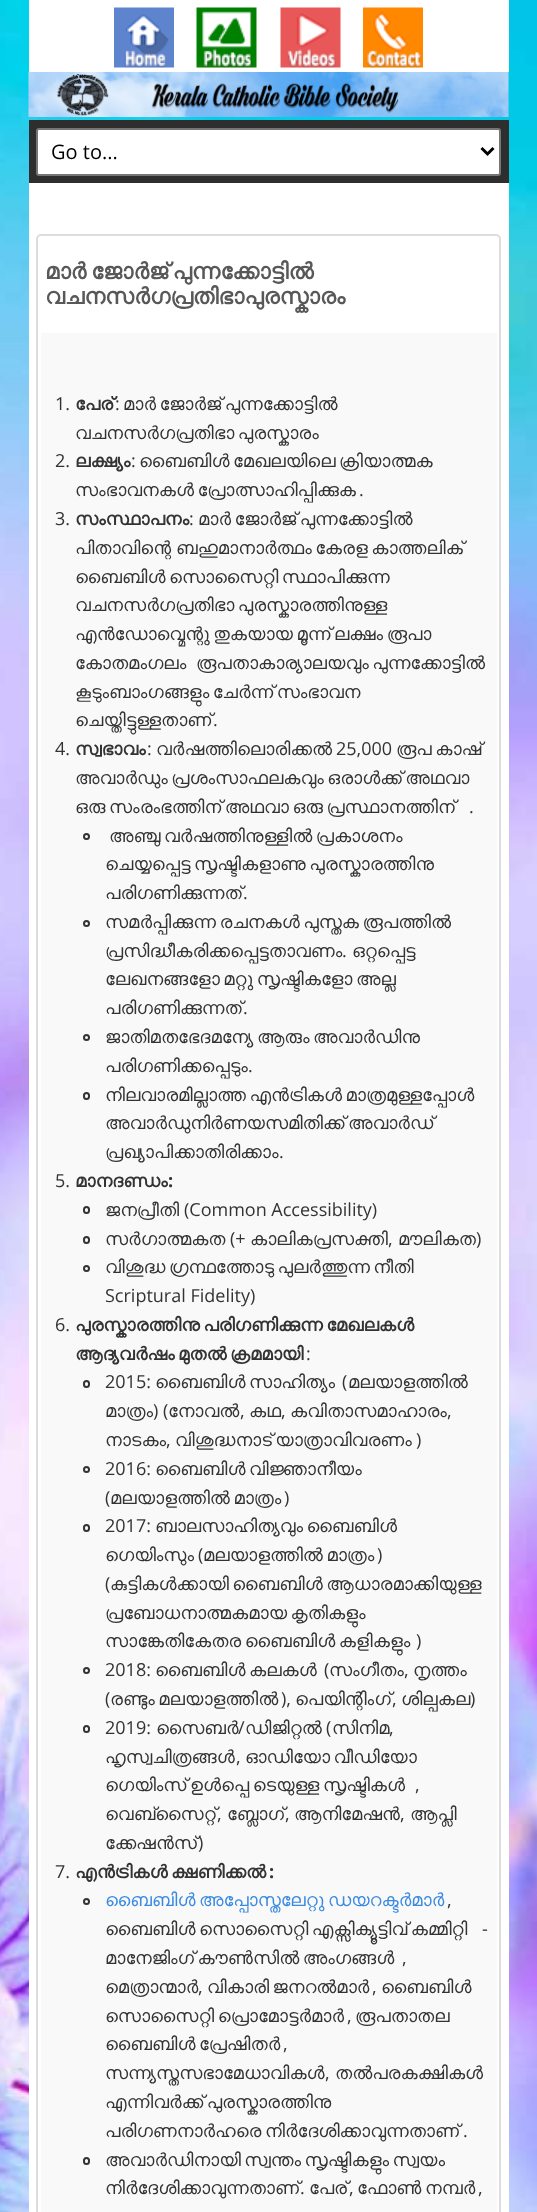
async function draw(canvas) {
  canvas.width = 537
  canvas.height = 2212
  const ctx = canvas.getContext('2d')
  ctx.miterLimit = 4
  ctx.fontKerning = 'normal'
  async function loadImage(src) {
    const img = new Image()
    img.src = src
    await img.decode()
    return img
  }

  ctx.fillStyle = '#fff'
  ctx.fillRect(0, 0, 537, 2212)
  ctx.drawImage(await loadImage('image0.png'), 0, 0, 537, 2212)
  ctx.fillRect(29, 0, 480, 72)
  ctx.drawImage(await loadImage('image1.png'), 114, 7, 60, 61)
  ctx.drawImage(await loadImage('image2.png'), 196, 7, 61, 61)
  ctx.drawImage(await loadImage('image3.png'), 280, 7, 61, 61)
  ctx.drawImage(await loadImage('image4.png'), 363, 7, 60, 61)
  ctx.drawImage(await loadImage('image5.png'), 28, 72, 481, 45)
  ctx.fillRect(29, 183, 480, 2029)
  ctx.fillStyle = '#2e2e2e'
  ctx.fillRect(29, 120, 480, 63)
  ctx.fillStyle = '#fff'
  ctx.beginPath()
  ctx.roundRect(37, 129, 463, 46, 2)
  ctx.fill()
  ctx.strokeStyle = '#767676'
  ctx.lineWidth = 2
  ctx.stroke()
  ctx.beginPath()
  ctx.moveTo(481.5, 148)
  ctx.lineTo(487.5, 154)
  ctx.lineTo(493.5, 148)
  ctx.strokeStyle = '#000'
  ctx.lineWidth = 3
  ctx.stroke()
  ctx.font = '20px Open Sans'
  ctx.fillStyle = '#000'
  ctx.fillText('Go to...', 51, 159)
  ctx.beginPath()
  ctx.roundRect(37, 235, 463, 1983, 4)
  ctx.strokeStyle = '#ddd'
  ctx.lineWidth = 2
  ctx.stroke()
  ctx.wordSpacing = '-1px'
  ctx.font = 'bold 22.5px FreeSans'
  ctx.fillStyle = '#585858'
  ctx.fillText('മാർ ജോർജ് പുന്നക്കോട്ടിൽ', 45, 279)
  ctx.wordSpacing = '0px'
  ctx.fillText('വചനസർഗപ്രതിഭാപുരസ്കാരം', 45, 304)
  ctx.fillStyle = '#f9f9f9'
  ctx.fillRect(41, 333, 456, 1879)
  ctx.font = '18px Open Sans'
  ctx.fillStyle = '#333'
  ctx.fillText('1.', 55, 410)
  ctx.font = 'bold 18px FreeSans'
  ctx.fillText('പേര്', 75, 410)
  ctx.font = '18px Open Sans'
  ctx.fillText(':', 115, 410)
  ctx.wordSpacing = '-1px'
  ctx.font = '18px FreeSans'
  ctx.fillText('മാർ ജോർജ് പുന്നക്കോട്ടിൽ', 123, 410)
  ctx.fillText('വചനസർഗപ്രതിഭാ പുരസ്കാരം', 75, 439)
  ctx.wordSpacing = '0px'
  ctx.font = '18px Open Sans'
  ctx.fillText('2.', 55, 467)
  ctx.font = 'bold 18px FreeSans'
  ctx.fillText('ലക്ഷ്യം', 75, 467)
  ctx.font = '18px Open Sans'
  ctx.fillText(':', 131, 467)
  ctx.wordSpacing = '-1px'
  ctx.font = '18px FreeSans'
  ctx.fillText('ബൈബിൾ മേഖലയിലെ ക്രിയാത്മക', 139, 467)
  ctx.fillText('സംഭാവനകൾ പ്രോത്സാഹിപ്പിക്കുക', 75, 496)
  ctx.wordSpacing = '0px'
  ctx.font = '18px Open Sans'
  ctx.fillText('.', 359, 496)
  ctx.fillText('3.', 55, 525)
  ctx.font = 'bold 18px FreeSans'
  ctx.fillText('സംസ്ഥാപനം', 75, 525)
  ctx.font = '18px Open Sans'
  ctx.fillText(':', 189, 525)
  ctx.wordSpacing = '-1px'
  ctx.font = '18px FreeSans'
  ctx.fillText('മാർ ജോർജ് പുന്നക്കോട്ടിൽ', 198, 525)
  ctx.wordSpacing = '0px'
  ctx.fillText('പിതാവിന്റെ', 75, 554)
  ctx.wordSpacing = '-1px'
  ctx.fillText('ബഹുമാനാർത്ഥം കേരള കാത്തലിക്', 176, 554)
  ctx.fillText('ബൈബിൾ സൊസൈറ്റി സ്ഥാപിക്കുന്ന', 75, 583)
  ctx.fillText('വചനസർഗപ്രതിഭാ പുരസ്കാരത്തിനുള്ള', 75, 611)
  ctx.fillText('എൻഡോവ്മെന്റു തുകയായ മൂന്ന് ലക്ഷം രൂപാ', 75, 640)
  ctx.wordSpacing = '0px'
  ctx.fillText('കോതമംഗലം', 75, 669)
  ctx.fillText('രൂപതാ', 196, 669)
  ctx.wordSpacing = '-1px'
  ctx.fillText('കാര്യാലയവും പുന്നക്കോട്ടിൽ', 258, 669)
  ctx.fillText('കൂടുംബാംഗങ്ങളും ചേർന്ന് സംഭാവന', 75, 698)
  ctx.wordSpacing = '0px'
  ctx.fillText('ചെയ്തിട്ടുള്ളതാണ്', 75, 726)
  ctx.font = '18px Open Sans'
  ctx.fillText('.', 213, 726)
  ctx.fillText('4.', 55, 755)
  ctx.font = 'bold 18px FreeSans'
  ctx.fillText('സ്വഭാവം', 75, 755)
  ctx.font = '18px Open Sans'
  ctx.fillText(':', 147, 755)
  ctx.font = '18px FreeSans'
  ctx.fillText('വർഷത്തിലൊരിക്കൽ', 156, 755)
  ctx.font = '18px Open Sans'
  ctx.fillText('25,000', 336, 755)
  ctx.wordSpacing = '-1px'
  ctx.font = '18px FreeSans'
  ctx.fillText('രൂപ കാഷ്', 396, 755)
  ctx.fillText('അവാർഡും പ്രശംസാഫലകവും ഒരാൾക്ക് അഥവാ', 75, 784)
  ctx.fillText('ഒരു സംരംഭത്തിന് അഥവാ ഒരു പ്രസ്ഥാനത്തിന്', 75, 813)
  ctx.wordSpacing = '0px'
  ctx.font = '18px Open Sans'
  ctx.fillText('.', 469, 813)
  ctx.beginPath()
  ctx.arc(86.5, 836.5, 2.5, 0, 2 * Math.PI)
  ctx.strokeStyle = '#333'
  ctx.stroke()
  ctx.wordSpacing = '-1px'
  ctx.font = '18px FreeSans'
  ctx.fillText('അഞ്ചു വർഷത്തിനുള്ളിൽ പ്രകാശനം', 109, 842)
  ctx.fillText('ചെയ്യപ്പെട്ട സൃഷ്ടികളാണു പുരസ്കാരത്തിനു', 105, 870)
  ctx.wordSpacing = '0px'
  ctx.fillText('പരിഗണിക്കുന്നത്', 105, 899)
  ctx.font = '18px Open Sans'
  ctx.fillText('.', 243, 899)
  ctx.beginPath()
  ctx.arc(86.5, 923.5, 2.5, 0, 2 * Math.PI)
  ctx.stroke()
  ctx.wordSpacing = '-1px'
  ctx.font = '18px FreeSans'
  ctx.fillText('സമർപ്പിക്കുന്ന രചനകൾ പുസ്തക രൂപത്തിൽ', 105, 928)
  ctx.wordSpacing = '0px'
  ctx.fillText('പ്രസിദ്ധീകരിക്കപ്പെട്ടതാവണം', 105, 957)
  ctx.font = '18px Open Sans'
  ctx.fillText('.', 342, 957)
  ctx.font = '18px FreeSans'
  ctx.fillText('ഒറ്റപ്പെട്ട', 352, 957)
  ctx.wordSpacing = '-1px'
  ctx.fillText('ലേഖനങ്ങളോ മറ്റു സൃഷ്ടികളോ അല്ല', 105, 985)
  ctx.wordSpacing = '0px'
  ctx.fillText('പരിഗണിക്കുന്നത്', 105, 1014)
  ctx.font = '18px Open Sans'
  ctx.fillText('.', 243, 1014)
  ctx.beginPath()
  ctx.arc(86.5, 1037.5, 2.5, 0, 2 * Math.PI)
  ctx.stroke()
  ctx.wordSpacing = '-1px'
  ctx.font = '18px FreeSans'
  ctx.fillText('ജാതിമതഭേദമന്യേ ആരും അവാർഡിനു', 105, 1043)
  ctx.wordSpacing = '0px'
  ctx.fillText('പരിഗണിക്കപ്പെടും', 105, 1072)
  ctx.font = '18px Open Sans'
  ctx.fillText('.', 248, 1072)
  ctx.beginPath()
  ctx.roundRect(84, 1093, 5, 6, 2.5)
  ctx.stroke()
  ctx.wordSpacing = '-1px'
  ctx.font = '18px FreeSans'
  ctx.fillText('നിലവാരമില്ലാത്ത എൻട്രികൾ മാത്രമുള്ളപ്പോൾ', 105, 1101)
  ctx.fillText('അവാർഡുനിർണയസമിതിക്ക് അവാർഡ്', 105, 1129)
  ctx.wordSpacing = '0px'
  ctx.fillText('പ്രഖ്യാപിക്കാതിരിക്കാം', 105, 1158)
  ctx.font = '18px Open Sans'
  ctx.fillText('.', 279, 1158)
  ctx.fillText('5.', 55, 1187)
  ctx.font = 'bold 18px FreeSans'
  ctx.fillText('മാനദണ്ഡം', 75, 1187)
  ctx.font = 'bold 18px Open Sans'
  ctx.fillText(':', 168, 1187)
  ctx.beginPath()
  ctx.roundRect(84, 1207, 5, 6, 2.5)
  ctx.stroke()
  ctx.font = '18px FreeSans'
  ctx.fillText('ജനപ്രീതി', 105, 1216)
  ctx.font = '18px Open Sans'
  ctx.fillText('(Common Accessibility)', 184, 1216)
  ctx.beginPath()
  ctx.roundRect(84, 1237, 5, 6, 2.5)
  ctx.stroke()
  ctx.font = '18px FreeSans'
  ctx.fillText('സർഗാത്മകത', 105, 1245)
  ctx.font = '18px Open Sans'
  ctx.fillText('(+', 230, 1245)
  ctx.font = '18px FreeSans'
  ctx.fillText('കാലികപ്രസക്തി', 250, 1245)
  ctx.fillText('മൗലികത', 398, 1245)
  ctx.font = '18px Open Sans'
  ctx.fillText(')', 476, 1245)
  ctx.fillText(',', 388, 1245)
  ctx.beginPath()
  ctx.arc(86.5, 1268.5, 2.5, 0, 2 * Math.PI)
  ctx.stroke()
  ctx.wordSpacing = '-1px'
  ctx.font = '18px FreeSans'
  ctx.fillText('വിശുദ്ധ ഗ്രന്ഥത്തോടു പുലർത്തുന്ന നീതി', 105, 1273)
  ctx.wordSpacing = '0px'
  ctx.font = '18px Open Sans'
  ctx.fillText('Scriptural Fidelity)', 105, 1302)
  ctx.fillText('6.', 55, 1331)
  ctx.wordSpacing = '-1px'
  ctx.font = 'bold 18px FreeSans'
  ctx.fillText('പുരസ്കാരത്തിനു പരിഗണിക്കുന്ന മേഖലകൾ', 75, 1331)
  ctx.fillText('ആദ്യവർഷം മുതൽ ക്രമമായി', 75, 1360)
  ctx.wordSpacing = '0px'
  ctx.font = '18px Open Sans'
  ctx.fillText(':', 306, 1360)
  ctx.beginPath()
  ctx.roundRect(84, 1381, 5, 6, 2.5)
  ctx.stroke()
  ctx.fillText('2015:', 105, 1388)
  ctx.wordSpacing = '-1px'
  ctx.font = '18px FreeSans'
  ctx.fillText('ബൈബിൾ സാഹിത്യം', 155, 1388)
  ctx.wordSpacing = '0px'
  ctx.font = '18px Open Sans'
  ctx.fillText('(', 342, 1388)
  ctx.font = '18px FreeSans'
  ctx.fillText('മലയാളത്തിൽ', 348, 1388)
  ctx.fillText('മാത്രം', 105, 1417)
  ctx.font = '18px Open Sans'
  ctx.fillText(') (', 153, 1417)
  ctx.font = '18px FreeSans'
  ctx.fillText('നോവൽ', 168, 1417)
  ctx.font = '18px Open Sans'
  ctx.fillText(',', 240, 1417)
  ctx.font = '18px FreeSans'
  ctx.fillText('കഥ', 249, 1417)
  ctx.font = '18px Open Sans'
  ctx.fillText(',', 281, 1417)
  ctx.font = '18px FreeSans'
  ctx.fillText('കവിതാസമാഹാരം', 290, 1417)
  ctx.font = '18px Open Sans'
  ctx.fillText(',', 447, 1417)
  ctx.font = '18px FreeSans'
  ctx.fillText('നാടകം', 105, 1446)
  ctx.font = '18px Open Sans'
  ctx.fillText(',', 166, 1446)
  ctx.wordSpacing = '-1px'
  ctx.font = '18px FreeSans'
  ctx.fillText('വിശുദ്ധനാട് യാത്രാവിവരണം', 175, 1446)
  ctx.wordSpacing = '0px'
  ctx.font = '18px Open Sans'
  ctx.fillText(')', 416, 1446)
  ctx.beginPath()
  ctx.arc(86.5, 1469.5, 2.5, 0, 2 * Math.PI)
  ctx.stroke()
  ctx.fillText('2016:', 105, 1475)
  ctx.wordSpacing = '-1px'
  ctx.font = '18px FreeSans'
  ctx.fillText('ബൈബിൾ വിജ്ഞാനീയം', 155, 1475)
  ctx.wordSpacing = '0px'
  ctx.font = '18px Open Sans'
  ctx.fillText('(', 105, 1504)
  ctx.wordSpacing = '-1px'
  ctx.font = '18px FreeSans'
  ctx.fillText('മലയാളത്തിൽ മാത്രം', 110, 1504)
  ctx.wordSpacing = '0px'
  ctx.font = '18px Open Sans'
  ctx.fillText(')', 284, 1504)
  ctx.beginPath()
  ctx.roundRect(84, 1525, 5, 6, 2.5)
  ctx.stroke()
  ctx.fillText('2017:', 105, 1532)
  ctx.wordSpacing = '-1px'
  ctx.font = '18px FreeSans'
  ctx.fillText('ബാലസാഹിത്യവും ബൈബിൾ', 155, 1532)
  ctx.wordSpacing = '0px'
  ctx.fillText('ഗെയിംസും', 105, 1561)
  ctx.font = '18px Open Sans'
  ctx.fillText('(', 198, 1561)
  ctx.wordSpacing = '-1px'
  ctx.font = '18px FreeSans'
  ctx.fillText('മലയാളത്തിൽ മാത്രം', 203, 1561)
  ctx.wordSpacing = '0px'
  ctx.font = '18px Open Sans'
  ctx.fillText(')', 377, 1561)
  ctx.fillText('(', 105, 1590)
  ctx.wordSpacing = '-1px'
  ctx.font = '18px FreeSans'
  ctx.fillText('കുട്ടികൾക്കായി ബൈബിൾ ആധാരമാക്കിയുള്ള', 110, 1590)
  ctx.fillText('പ്രബോധനാത്മകമായ കൃതികളും', 105, 1619)
  ctx.fillText('സാങ്കേതികേതര ബൈബിൾ കളികളും', 105, 1647)
  ctx.wordSpacing = '0px'
  ctx.font = '18px Open Sans'
  ctx.fillText(')', 416, 1647)
  ctx.beginPath()
  ctx.arc(86.5, 1670.5, 2.5, 0, 2 * Math.PI)
  ctx.stroke()
  ctx.fillText('2018:', 105, 1676)
  ctx.wordSpacing = '-1px'
  ctx.font = '18px FreeSans'
  ctx.fillText('ബൈബിൾ കലകൾ', 155, 1676)
  ctx.wordSpacing = '0px'
  ctx.font = '18px Open Sans'
  ctx.fillText('(', 324, 1676)
  ctx.font = '18px FreeSans'
  ctx.fillText('സംഗീതം', 329, 1676)
  ctx.fillText('നൃത്തം', 413, 1676)
  ctx.font = '18px Open Sans'
  ctx.fillText(',', 404, 1676)
  ctx.fillText('(', 105, 1705)
  ctx.wordSpacing = '-1px'
  ctx.font = '18px FreeSans'
  ctx.fillText('രണ്ടും മലയാളത്തിൽ', 110, 1705)
  ctx.wordSpacing = '0px'
  ctx.font = '18px Open Sans'
  ctx.fillText('),', 281, 1705)
  ctx.font = '18px FreeSans'
  ctx.fillText('പെയിന്റിംഗ്', 295, 1705)
  ctx.font = '18px Open Sans'
  ctx.fillText(',', 392, 1705)
  ctx.font = '18px FreeSans'
  ctx.fillText('ശില്പകല', 401, 1705)
  ctx.font = '18px Open Sans'
  ctx.fillText(')', 470, 1705)
  ctx.beginPath()
  ctx.roundRect(84, 1726, 5, 6, 2.5)
  ctx.stroke()
  ctx.fillText('2019:', 105, 1734)
  ctx.font = '18px FreeSans'
  ctx.fillText('സൈബർ', 156, 1734)
  ctx.font = '18px Open Sans'
  ctx.fillText('/', 238, 1734)
  ctx.font = '18px FreeSans'
  ctx.fillText('ഡിജിറ്റൽ', 245, 1734)
  ctx.font = '18px Open Sans'
  ctx.fillText('(', 326, 1734)
  ctx.font = '18px FreeSans'
  ctx.fillText('സിനിമ', 332, 1734)
  ctx.font = '18px Open Sans'
  ctx.fillText(',', 389, 1734)
  ctx.font = '18px FreeSans'
  ctx.fillText('ഹൃസ്വചിത്രങ്ങൾ', 105, 1763)
  ctx.font = '18px Open Sans'
  ctx.fillText(',', 236, 1763)
  ctx.wordSpacing = '-1px'
  ctx.font = '18px FreeSans'
  ctx.fillText('ഓഡിയോ വീഡിയോ', 245, 1763)
  ctx.fillText('ഗെയിംസ് ഉൾപ്പെ ടെയുള്ള സൃഷ്ടികൾ', 105, 1791)
  ctx.wordSpacing = '0px'
  ctx.font = '18px Open Sans'
  ctx.fillText(',', 415, 1791)
  ctx.font = '18px FreeSans'
  ctx.fillText('വെബ്സൈറ്റ്', 105, 1820)
  ctx.font = '18px Open Sans'
  ctx.fillText(',', 217, 1820)
  ctx.font = '18px FreeSans'
  ctx.fillText('ബ്ലോഗ്', 227, 1820)
  ctx.fillText('ആനിമേഷൻ', 294, 1820)
  ctx.fillText('ആപ്ലി', 410, 1820)
  ctx.font = '18px Open Sans'
  ctx.fillText(',', 285, 1820)
  ctx.fillText(',', 400, 1820)
  ctx.font = '18px FreeSans'
  ctx.fillText('ക്കേഷൻസ്', 105, 1849)
  ctx.font = '18px Open Sans'
  ctx.fillText(')', 198, 1849)
  ctx.fillText('7.', 55, 1878)
  ctx.wordSpacing = '-1px'
  ctx.font = 'bold 18px FreeSans'
  ctx.fillText('എൻട്രികൾ ക്ഷണിക്കൽ', 75, 1878)
  ctx.wordSpacing = '0px'
  ctx.font = 'bold 18px Open Sans'
  ctx.fillText(':', 269, 1878)
  ctx.beginPath()
  ctx.arc(86.5, 1901.5, 2.5, 0, 2 * Math.PI)
  ctx.stroke()
  ctx.wordSpacing = '-1px'
  ctx.font = '18px FreeSans'
  ctx.fillStyle = '#3a8ae2'
  ctx.fillText('ബൈബിൾ അപ്പോസ്തലേറ്റു ഡയറക്ടർമാർ', 105, 1906)
  ctx.wordSpacing = '0px'
  ctx.font = '18px Open Sans'
  ctx.fillStyle = '#333'
  ctx.fillText(',', 447, 1906)
  ctx.wordSpacing = '-1px'
  ctx.font = '18px FreeSans'
  ctx.fillText('ബൈബിൾ സൊസൈറ്റി എക്സിക്യൂട്ടിവ് കമ്മിറ്റി', 105, 1935)
  ctx.wordSpacing = '0px'
  ctx.font = '18px Open Sans'
  ctx.fillText('-', 482, 1935)
  ctx.wordSpacing = '-1px'
  ctx.font = '18px FreeSans'
  ctx.fillText('മാനേജിംഗ് കൗൺസിൽ അംഗങ്ങൾ', 105, 1964)
  ctx.wordSpacing = '0px'
  ctx.font = '18px Open Sans'
  ctx.fillText(',', 402, 1964)
  ctx.font = '18px FreeSans'
  ctx.fillText('മെത്രാന്മാർ', 105, 1993)
  ctx.font = '18px Open Sans'
  ctx.fillText(',', 198, 1993)
  ctx.wordSpacing = '-1px'
  ctx.font = '18px FreeSans'
  ctx.fillText('വികാരി ജനറൽമാർ', 207, 1993)
  ctx.wordSpacing = '0px'
  ctx.font = '18px Open Sans'
  ctx.fillText(',', 372, 1993)
  ctx.font = '18px FreeSans'
  ctx.fillText('ബൈബിൾ', 381, 1993)
  ctx.wordSpacing = '-1px'
  ctx.fillText('സൊസൈറ്റി പ്രൊമോട്ടർമാർ', 105, 2022)
  ctx.wordSpacing = '0px'
  ctx.font = '18px Open Sans'
  ctx.fillText(',', 347, 2022)
  ctx.font = '18px FreeSans'
  ctx.fillText('രൂപതാതല', 355, 2022)
  ctx.wordSpacing = '-1px'
  ctx.fillText('ബൈബിൾ പ്രേഷിതർ', 105, 2050)
  ctx.wordSpacing = '0px'
  ctx.font = '18px Open Sans'
  ctx.fillText(',', 283, 2050)
  ctx.font = '18px FreeSans'
  ctx.fillText('സന്ന്യസ്തസഭാമേധാവികൾ', 105, 2079)
  ctx.font = '18px Open Sans'
  ctx.fillText(',', 325, 2079)
  ctx.font = '18px FreeSans'
  ctx.fillText('തൽപരകക്ഷികൾ', 335, 2079)
  ctx.wordSpacing = '-1px'
  ctx.fillText('എന്നിവർക്ക് പുരസ്കാരത്തിനു', 105, 2108)
  ctx.fillText('പരിഗണനാർഹരെ നിർദേശിക്കാവുന്നതാണ്', 105, 2137)
  ctx.wordSpacing = '0px'
  ctx.font = '18px Open Sans'
  ctx.fillText('.', 463, 2137)
  ctx.beginPath()
  ctx.roundRect(84, 2158, 5, 6, 2.5)
  ctx.stroke()
  ctx.wordSpacing = '-1px'
  ctx.font = '18px FreeSans'
  ctx.fillText('അവാർഡിനായി സ്വന്തം സൃഷ്ടികളും സ്വയം', 105, 2166)
  ctx.wordSpacing = '0px'
  ctx.fillText('നിർദേശിക്കാവുന്നതാണ്', 105, 2194)
  ctx.font = '18px Open Sans'
  ctx.fillText('.', 300, 2194)
  ctx.font = '18px FreeSans'
  ctx.fillText('പേര്', 309, 2194)
  ctx.font = '18px Open Sans'
  ctx.fillText(',', 349, 2194)
  ctx.wordSpacing = '-1px'
  ctx.font = '18px FreeSans'
  ctx.fillText('ഫോൺ നമ്പർ', 357, 2194)
  ctx.wordSpacing = '0px'
  ctx.font = '18px Open Sans'
  ctx.fillText(',', 478, 2194)
}

draw(document.querySelector('canvas'))
